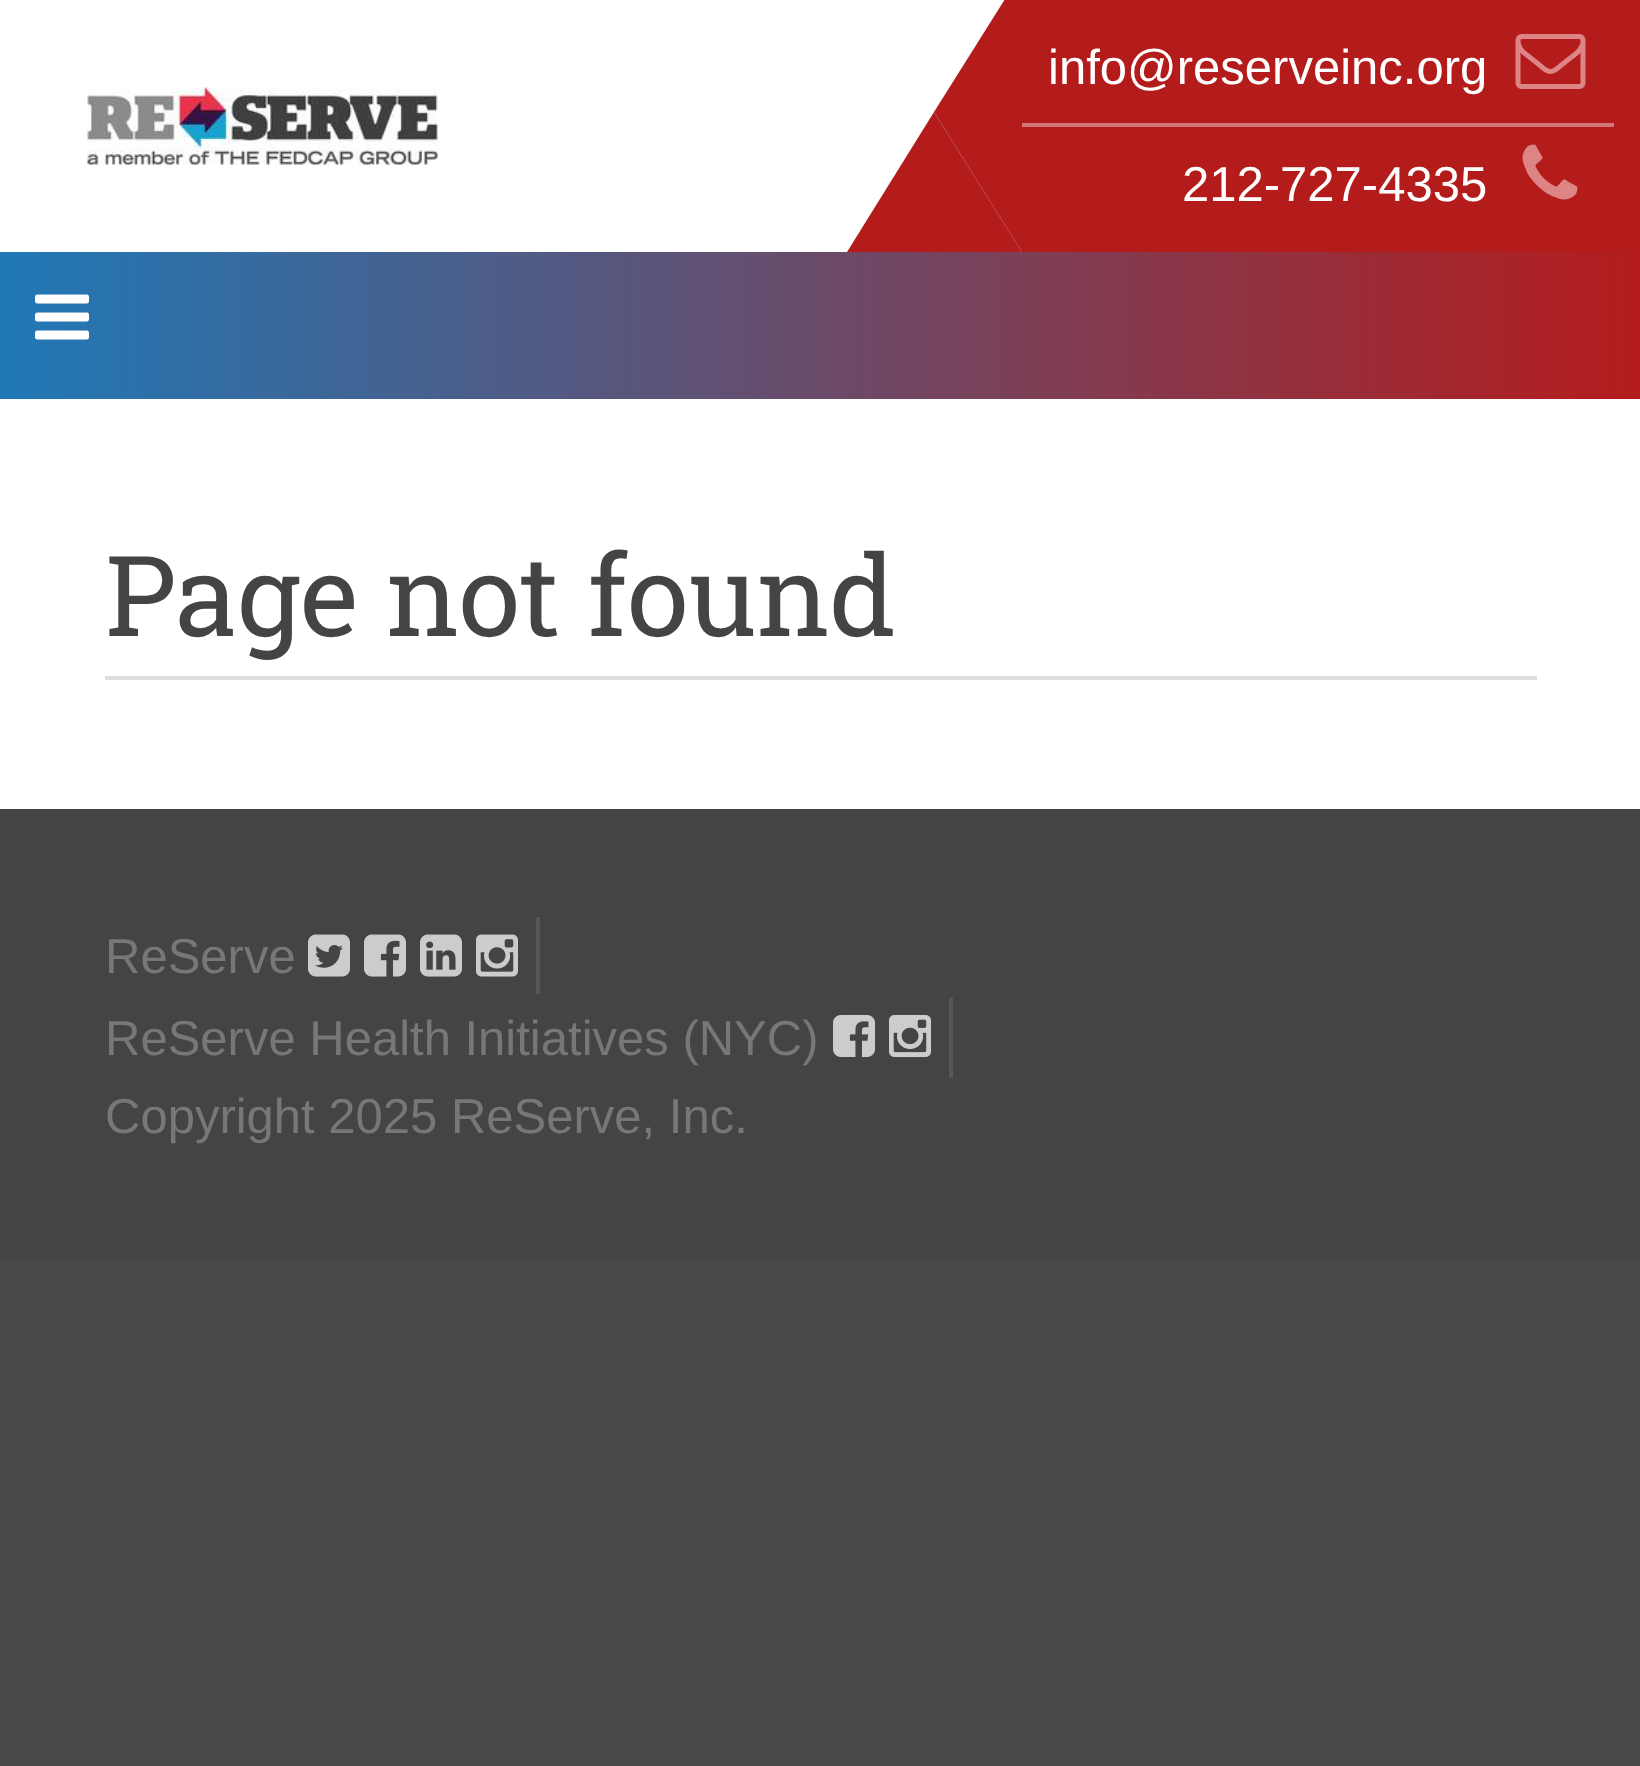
async function draw(canvas) {
  canvas.width = 1640
  canvas.height = 1766
  const ctx = canvas.getContext('2d')
  ctx.miterLimit = 4
  ctx.fontKerning = 'normal'
  async function loadImage(src) {
    const img = new Image()
    img.src = src
    await img.decode()
    return img
  }
  let gradient

  ctx.fillStyle = '#494949'
  ctx.fillRect(0, 0, 1640, 1766)
  ctx.fillStyle = '#fff'
  ctx.fillRect(0, 0, 1640, 809)
  ctx.drawImage(await loadImage('image0.png'), 87, 87, 351, 78)
  ctx.fillStyle = '#b41c1c'
  ctx.fillRect(1022, 0, 618, 252)
  ctx.beginPath()
  ctx.moveTo(1022, -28)
  ctx.lineTo(1022, 252)
  ctx.lineTo(934, 112)
  ctx.closePath()
  ctx.fill()
  ctx.beginPath()
  ctx.moveTo(1022, 252)
  ctx.lineTo(847, 252)
  ctx.lineTo(934, 112)
  ctx.closePath()
  ctx.fill()
  ctx.fillStyle = '#d27777'
  ctx.fillRect(1022, 123, 592, 4)
  ctx.font = '49px Liberation Sans'
  ctx.fillStyle = '#fff'
  ctx.fillText('info@reserveinc.org', 1048, 84)
  ctx.drawImage(await loadImage('image1.png'), 1515, 34, 71, 55)
  ctx.fillText('212-727-4335', 1182, 201)
  ctx.drawImage(await loadImage('image2.png'), 1522, 144, 56, 56)
  gradient = ctx.createLinearGradient(0, 326, 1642, 325)
  gradient.addColorStop(0, '#2079b7')
  gradient.addColorStop(1, '#b41c1c')
  ctx.fillStyle = gradient
  ctx.fillRect(0, 252, 1640, 147)
  ctx.drawImage(await loadImage('image3.png'), 35, 294, 54, 46)
  ctx.fillStyle = '#ddd'
  ctx.fillRect(105, 676, 1432, 4)
  ctx.font = '112px Roboto Slab'
  ctx.fillStyle = '#444'
  ctx.fillText('Page not found', 105, 636)
  ctx.fillRect(0, 809, 1640, 451)
  ctx.fillStyle = '#575757'
  ctx.fillRect(536, 917, 4, 77)
  ctx.font = '49px Liberation Sans'
  ctx.fillStyle = '#777'
  ctx.fillText('ReServe', 105, 973)
  ctx.drawImage(await loadImage('image4.png'), 308, 934, 42, 43)
  ctx.drawImage(await loadImage('image5.png'), 364, 934, 42, 43)
  ctx.drawImage(await loadImage('image6.png'), 420, 934, 42, 43)
  ctx.drawImage(await loadImage('image7.png'), 476, 934, 42, 43)
  ctx.fillStyle = '#575757'
  ctx.fillRect(949, 998, 4, 80)
  ctx.fillStyle = '#777'
  ctx.fillText('ReServe Health Initiatives (NYC)', 105, 1055)
  ctx.drawImage(await loadImage('image8.png'), 833, 1015, 42, 42)
  ctx.drawImage(await loadImage('image9.png'), 889, 1015, 42, 42)
  ctx.fillText('Copyright 2025 ReServe, Inc.', 105, 1133)
}

draw(document.querySelector('canvas'))
